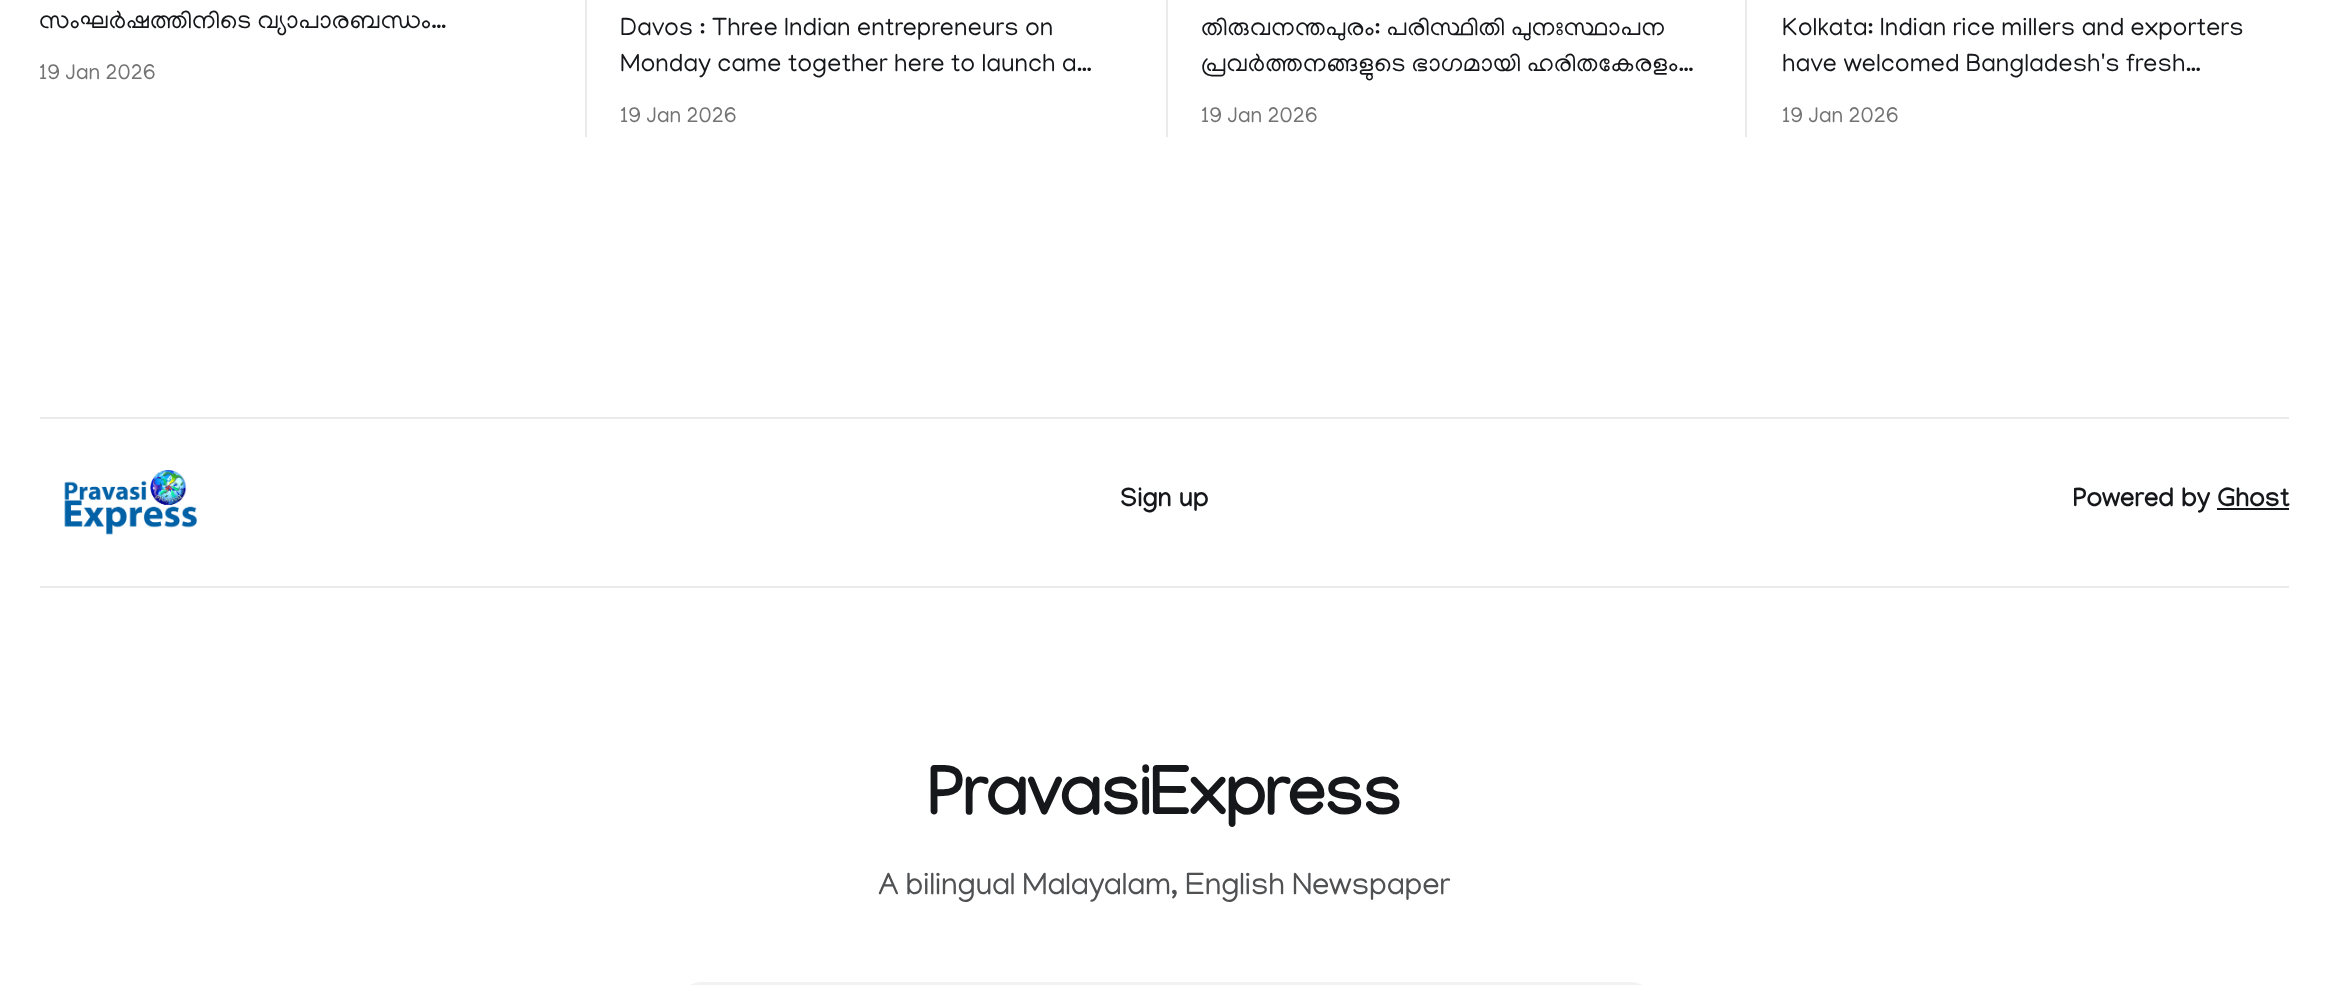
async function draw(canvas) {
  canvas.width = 2329
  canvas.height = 985
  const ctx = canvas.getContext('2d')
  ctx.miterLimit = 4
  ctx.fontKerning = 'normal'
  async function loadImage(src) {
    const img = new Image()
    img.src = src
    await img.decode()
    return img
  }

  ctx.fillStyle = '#fff'
  ctx.fillRect(0, 0, 2329, 985)
  ctx.font = '25.4px Manjari'
  ctx.fillStyle = '#15171a'
  ctx.fillText('സംഘർഷത്തിനിടെ വ്യാപാരബന്ധം…', 39, 28)
  ctx.font = '22px Manjari'
  ctx.fillStyle = '#737373'
  ctx.fillText('19 Jan 2026', 39, 79)
  ctx.fillStyle = '#ebebeb'
  ctx.fillRect(585, 0, 2, 137)
  ctx.font = '25.4px Manjari'
  ctx.fillStyle = '#15171a'
  ctx.fillText('Davos : Three Indian entrepreneurs on', 620, 35)
  ctx.fillText('Monday came together here to launch a…', 620, 71)
  ctx.font = '22px Manjari'
  ctx.fillStyle = '#737373'
  ctx.fillText('19 Jan 2026', 620, 122)
  ctx.fillStyle = '#ebebeb'
  ctx.fillRect(1166, 0, 2, 137)
  ctx.save()
  ctx.beginPath()
  ctx.rect(1202, 12, 506, 72)
  ctx.clip()
  ctx.font = '25.4px Manjari'
  ctx.fillStyle = '#15171a'
  ctx.fillText('തിരുവനന്തപുരം: പരിസ്ഥിതി പുനഃസ്ഥാപന', 1201, 35)
  ctx.restore()
  ctx.font = '25.4px Manjari'
  ctx.fillStyle = '#15171a'
  ctx.fillText('പ്രവർത്തനങ്ങളുടെ ഭാഗമായി ഹരിതകേരളം…', 1201, 71)
  ctx.font = '22px Manjari'
  ctx.fillStyle = '#737373'
  ctx.fillText('19 Jan 2026', 1201, 122)
  ctx.fillStyle = '#ebebeb'
  ctx.fillRect(1745, 0, 2, 137)
  ctx.font = '25.4px Manjari'
  ctx.fillStyle = '#15171a'
  ctx.fillText('Kolkata: Indian rice millers and exporters', 1782, 35)
  ctx.fillText('have welcomed Bangladesh\'s fresh…', 1782, 71)
  ctx.font = '22px Manjari'
  ctx.fillStyle = '#737373'
  ctx.fillText('19 Jan 2026', 1782, 122)
  ctx.fillStyle = '#ebebeb'
  ctx.fillRect(40, 417, 2249, 2)
  ctx.fillRect(40, 586, 2249, 2)
  ctx.drawImage(await loadImage('image0.png'), 64, 470, 134, 65)
  ctx.font = 'bold 26.25px Manjari'
  ctx.fillStyle = '#15171a'
  ctx.fillText('Sign up', 1120, 506)
  ctx.fillText('Powered by Ghost', 2073, 506)
  ctx.fillRect(2217, 508, 72, 2)
  ctx.letterSpacing = '-2.1px'
  ctx.font = 'bold 70px Manjari'
  ctx.fillText('PravasiExpress', 928, 814)
  ctx.letterSpacing = '-0.45px'
  ctx.font = '31.5px Manjari'
  ctx.fillStyle = '#505153'
  ctx.fillText('A bilingual Malayalam, English Newspaper', 878, 894)
  ctx.fillStyle = '#f2f2f2'
  ctx.beginPath()
  ctx.roundRect(676, 982, 980, 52, 49)
  ctx.fill()
}

draw(document.querySelector('canvas'))
